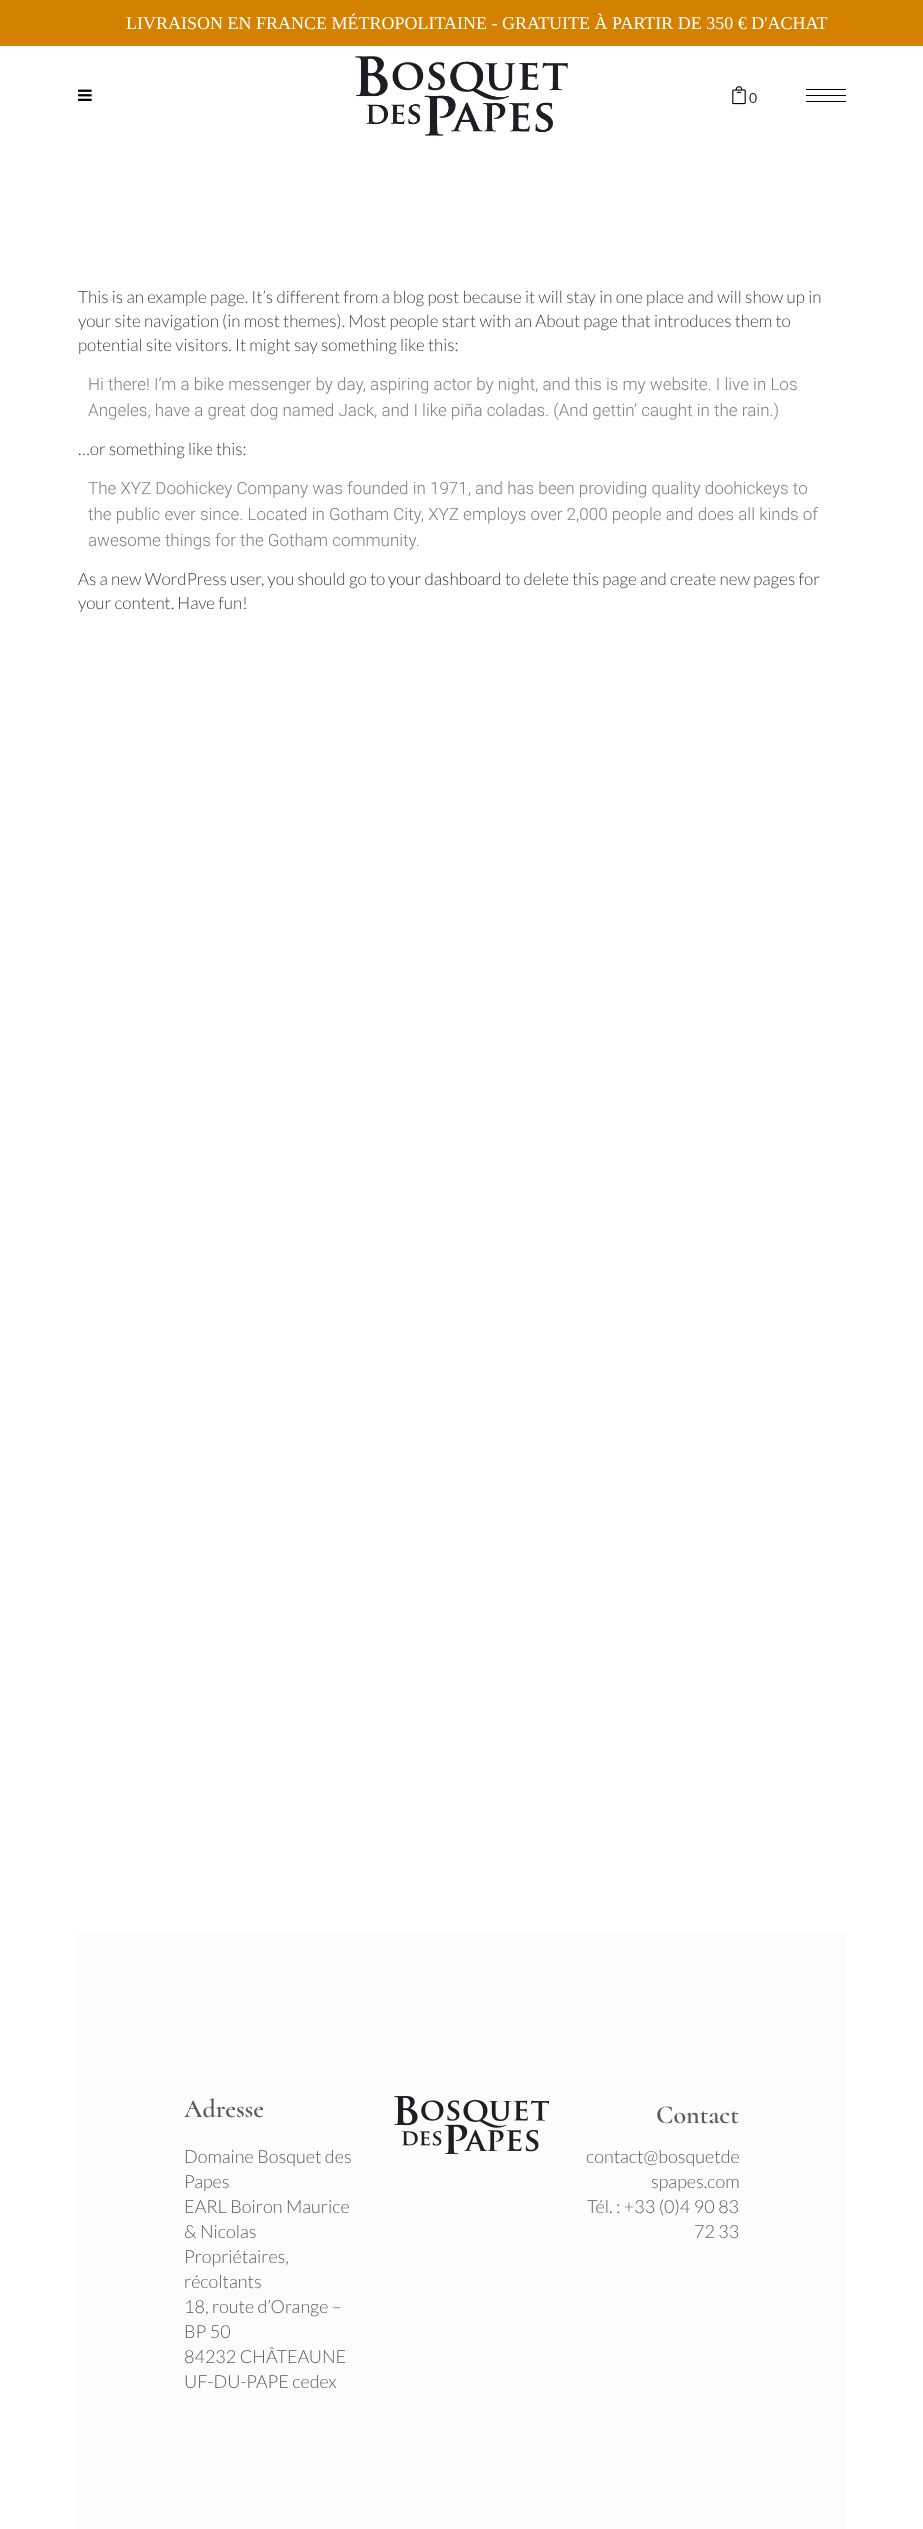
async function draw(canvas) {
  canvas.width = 923
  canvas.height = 2529
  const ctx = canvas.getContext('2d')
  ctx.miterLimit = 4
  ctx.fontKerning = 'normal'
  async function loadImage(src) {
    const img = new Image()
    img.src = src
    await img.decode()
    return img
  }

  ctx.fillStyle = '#fff'
  ctx.fillRect(0, 0, 923, 2529)
  ctx.fillStyle = '#d48000'
  ctx.fillRect(0, 0, 923, 46)
  ctx.font = '18px Liberation Serif'
  ctx.fillStyle = '#fff'
  ctx.fillText('LIVRAISON EN FRANCE MÉTROPOLITAINE - GRATUITE À PARTIR DE 350 € D\'ACHAT', 126, 29)
  ctx.drawImage(await loadImage('image0.png'), 78, 89, 14, 12)
  ctx.drawImage(await loadImage('image1.png'), 355, 56, 213, 80)
  ctx.drawImage(await loadImage('image2.png'), 732, 86, 14, 19)
  ctx.font = '14px Lato'
  ctx.fillStyle = '#303030'
  ctx.fillText('0', 749, 103)
  ctx.fillStyle = '#000'
  ctx.fillRect(806, 89, 40, 1)
  ctx.fillRect(806, 95, 40, 1)
  ctx.fillRect(806, 101, 40, 1)
  ctx.font = '300 17px Lato'
  ctx.fillStyle = '#3e3e3e'
  ctx.fillText('This is an example page. It’s different from a blog post because it will stay in one place and will show up in', 78, 303)
  ctx.fillText('your site navigation (in most themes). Most people start with an About page that introduces them to', 78, 327)
  ctx.fillText('potential site visitors. It might say something like this:', 78, 351)
  ctx.font = '300 17px Roboto'
  ctx.fillStyle = '#818181'
  ctx.fillText('Hi there! I’m a bike messenger by day, aspiring actor by night, and this is my website. I live in Los', 88, 390)
  ctx.fillText('Angeles, have a great dog named Jack, and I like piña coladas. (And gettin’ caught in the rain.)', 88, 416)
  ctx.font = '300 17px Lato'
  ctx.fillStyle = '#3e3e3e'
  ctx.fillText('…or something like this:', 78, 455)
  ctx.font = '300 17px Roboto'
  ctx.fillStyle = '#818181'
  ctx.fillText('The XYZ Doohickey Company was founded in 1971, and has been providing quality doohickeys to', 88, 494)
  ctx.fillText('the public ever since. Located in Gotham City, XYZ employs over 2,000 people and does all kinds of', 88, 520)
  ctx.fillText('awesome things for the Gotham community.', 88, 546)
  ctx.font = '300 17px Lato'
  ctx.fillStyle = '#3e3e3e'
  ctx.fillText('As a new WordPress user, you should go to', 78, 585)
  ctx.fillStyle = '#303030'
  ctx.fillText('your dashboard', 388, 585)
  ctx.fillStyle = '#3e3e3e'
  ctx.fillText('to delete this page and create new pages for', 505, 585)
  ctx.fillText('your content. Have fun!', 78, 609)
  ctx.fillStyle = '#fefcfb'
  ctx.fillRect(78, 1931, 768, 598)
  ctx.font = '600 26px Cormorant'
  ctx.fillStyle = '#59595a'
  ctx.fillText('Adresse', 184, 2117)
  ctx.font = '300 18px Lato'
  ctx.fillText('Domaine Bosquet des', 184, 2163)
  ctx.fillText('Papes', 184, 2188)
  ctx.fillText('EARL Boiron Maurice', 184, 2213)
  ctx.fillText('& Nicolas', 184, 2238)
  ctx.fillText('Propriétaires,', 184, 2263)
  ctx.fillText('récoltants', 184, 2288)
  ctx.fillText('18, route d’Orange –', 184, 2313)
  ctx.fillText('BP 50', 184, 2338)
  ctx.fillText('84232 CHÂTEAUNE', 184, 2363)
  ctx.fillText('UF-DU-PAPE cedex', 184, 2388)
  ctx.drawImage(await loadImage('image3.png'), 394, 2096, 155, 58)
  ctx.font = '600 26px Cormorant'
  ctx.fillText('Contact', 656, 2123)
  ctx.font = '300 18px Lato'
  ctx.fillText('contact@bosquetde', 586, 2163)
  ctx.fillText('spapes.com', 651, 2188)
  ctx.fillText('Tél. : +33 (0)4 90 83', 587, 2213)
  ctx.fillText('72 33', 694, 2238)
}

draw(document.querySelector('canvas'))
